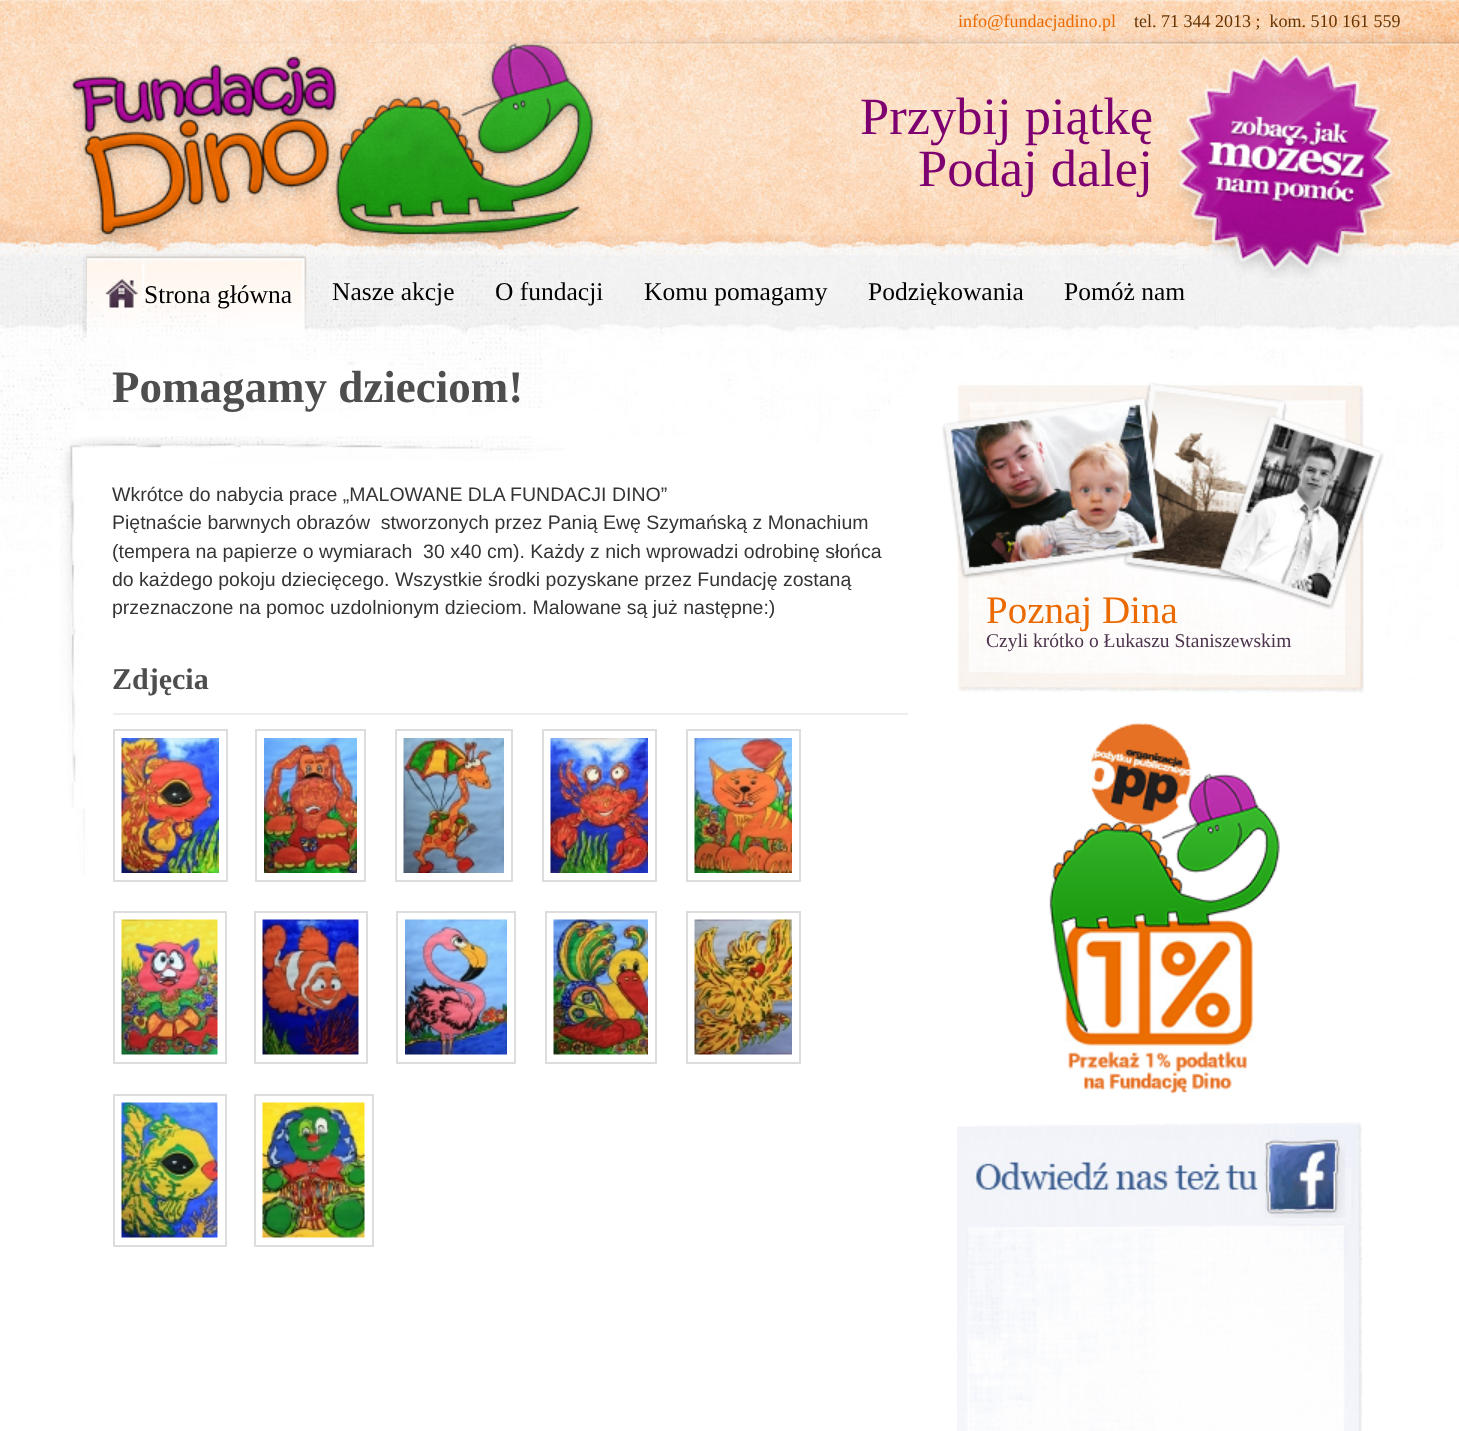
async function draw(canvas) {
  canvas.width = 1459
  canvas.height = 1431
  const ctx = canvas.getContext('2d')
  ctx.miterLimit = 4
  ctx.fontKerning = 'normal'
  async function loadImage(src) {
    const img = new Image()
    img.src = src
    await img.decode()
    return img
  }

  ctx.fillStyle = '#fff'
  ctx.fillRect(0, 0, 1459, 1431)
  ctx.drawImage(await loadImage('image0.png'), 0, 0, 1459, 876)
  ctx.font = '18px Liberation Serif'
  ctx.fillStyle = '#eb6a01'
  ctx.fillText('info@fundacjadino.pl', 958, 27)
  ctx.fillStyle = '#630'
  ctx.fillText('tel. 71 344 2013 ;  kom. 510 161 559', 1134, 27)
  ctx.drawImage(await loadImage('image1.png'), 63, 37, 541, 214)
  ctx.font = '52.5px Liberation Serif'
  ctx.fillStyle = '#7e0070'
  ctx.fillText('Przybij piątkę', 860, 134)
  ctx.fillText('Podaj dalej', 918, 186)
  ctx.drawImage(await loadImage('image2.png'), 1177, 54, 217, 224)
  ctx.drawImage(await loadImage('image3.png'), 82, 253, 7, 85)
  ctx.drawImage(await loadImage('image4.png'), 87, 253, 222, 84)
  ctx.drawImage(await loadImage('image5.png'), 105, 279, 33, 29)
  ctx.font = '25.5px Liberation Serif'
  ctx.fillStyle = '#000'
  ctx.fillText('Strona główna', 144, 303)
  ctx.fillText('Nasze akcje', 332, 300)
  ctx.fillText('O fundacji', 495, 300)
  ctx.fillText('Komu pomagamy', 644, 300)
  ctx.fillText('Podziękowania', 868, 300)
  ctx.fillText('Pomóż nam', 1064, 300)
  ctx.font = 'bold 45px Liberation Serif'
  ctx.fillStyle = '#4e4e4e'
  ctx.fillText('Pomagamy dzieciom!', 112, 402)
  ctx.drawImage(await loadImage('image6.png'), 60, 436, 505, 373)
  ctx.font = '19.5px Liberation Sans'
  ctx.fillStyle = '#343434'
  ctx.fillText('Wkrótce do nabycia prace „MALOWANE DLA FUNDACJI DINO”', 112, 501)
  ctx.fillText('Piętnaście barwnych obrazów  stworzonych przez Panią Ewę Szymańską z Monachium', 112, 529)
  ctx.fillText('(tempera na papierze o wymiarach  30 x40 cm). Każdy z nich wprowadzi odrobinę słońca', 112, 558)
  ctx.fillText('do każdego pokoju dziecięcego. Wszystkie środki pozyskane przez Fundację zostaną', 112, 586)
  ctx.fillText('przeznaczone na pomoc uzdolnionym dzieciom. Malowane są już następne:)', 112, 614)
  ctx.fillStyle = '#eee'
  ctx.fillRect(113, 713, 795, 2)
  ctx.font = 'bold 30px Liberation Serif'
  ctx.fillStyle = '#4e4e4e'
  ctx.fillText('Zdjęcia', 112, 689)
  ctx.strokeStyle = '#ddd'
  ctx.lineWidth = 2
  ctx.strokeRect(114, 730, 113, 151)
  ctx.strokeRect(256, 730, 109, 151)
  ctx.strokeRect(396, 730, 116, 151)
  ctx.strokeRect(543, 730, 113, 151)
  ctx.strokeRect(687, 730, 113, 151)
  ctx.drawImage(await loadImage('image7.png'), 121, 738, 98, 135)
  ctx.drawImage(await loadImage('image8.png'), 264, 738, 93, 135)
  ctx.drawImage(await loadImage('image9.png'), 403, 738, 101, 135)
  ctx.drawImage(await loadImage('image10.png'), 550, 738, 98, 135)
  ctx.drawImage(await loadImage('image11.png'), 694, 738, 98, 135)
  ctx.strokeRect(114, 912, 112, 151)
  ctx.strokeRect(255, 912, 112, 151)
  ctx.strokeRect(397, 912, 118, 151)
  ctx.strokeRect(546, 912, 110, 151)
  ctx.strokeRect(687, 912, 113, 151)
  ctx.drawImage(await loadImage('image12.png'), 121, 919, 97, 136)
  ctx.drawImage(await loadImage('image13.png'), 262, 919, 97, 136)
  ctx.drawImage(await loadImage('image14.png'), 405, 919, 102, 136)
  ctx.drawImage(await loadImage('image15.png'), 553, 919, 95, 136)
  ctx.drawImage(await loadImage('image16.png'), 694, 919, 98, 136)
  ctx.strokeRect(114, 1095, 112, 151)
  ctx.strokeRect(255, 1095, 118, 151)
  ctx.drawImage(await loadImage('image17.png'), 121, 1102, 97, 136)
  ctx.drawImage(await loadImage('image18.png'), 262, 1102, 103, 136)
  ctx.drawImage(await loadImage('image19.png'), 957, 382, 407, 311)
  ctx.drawImage(await loadImage('image20.png'), 942, 383, 442, 227)
  ctx.font = '39px Liberation Serif'
  ctx.fillStyle = '#eb6a01'
  ctx.fillText('Poznaj Dina', 986, 623)
  ctx.font = '19.5px Liberation Serif'
  ctx.fillStyle = '#4d354d'
  ctx.fillText('Czyli krótko o Łukaszu Staniszewskim', 986, 647)
  ctx.drawImage(await loadImage('image21.png'), 1049, 723, 231, 371)
  ctx.drawImage(await loadImage('image22.png'), 957, 1122, 405, 309)
  ctx.drawImage(await loadImage('image23.png'), 972, 1137, 374, 81)
}

draw(document.querySelector('canvas'))
